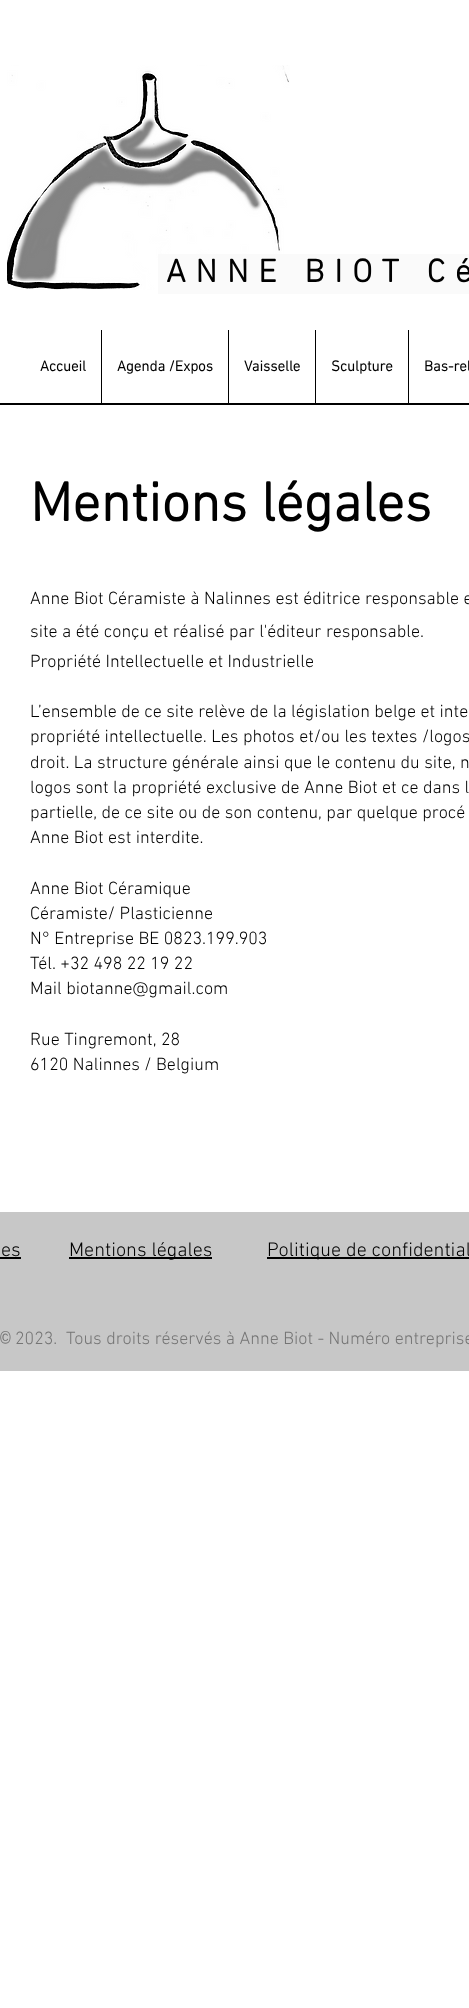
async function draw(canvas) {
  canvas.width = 469
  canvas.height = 2008
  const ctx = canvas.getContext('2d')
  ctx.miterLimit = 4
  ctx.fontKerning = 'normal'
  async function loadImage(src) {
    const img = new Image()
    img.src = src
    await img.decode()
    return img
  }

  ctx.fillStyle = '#fff'
  ctx.fillRect(0, 0, 469, 2008)
  ctx.drawImage(await loadImage('image0.png'), 7, 65, 283, 225)
  ctx.fillStyle = '#fafafa'
  ctx.fillRect(158, 254, 311, 40)
  ctx.letterSpacing = '9.9px'
  ctx.font = 'bold 33px "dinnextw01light"'
  ctx.fillStyle = '#000'
  ctx.fillText('ANNE BIOT Cé', 166, 282)
  ctx.letterSpacing = '0px'
  ctx.font = 'bold 15px "dinnextw01light"'
  ctx.fillText('Accueil', 40, 371)
  ctx.fillRect(0, 403, 469, 2)
  ctx.fillRect(101, 330, 1, 75)
  ctx.fillText('Agenda /Expos', 117, 371)
  ctx.fillRect(228, 330, 1, 75)
  ctx.fillText('Vaisselle', 244, 371)
  ctx.fillRect(315, 330, 1, 75)
  ctx.fillText('Sculpture', 331, 371)
  ctx.fillRect(408, 330, 1, 75)
  ctx.fillText('Bas-rel', 424, 371)
  ctx.font = 'bold 56px "dinnextw01light"'
  ctx.fillText('Mentions légales', 30, 521)
  ctx.font = '300 18px "dinnextw01light"'
  ctx.fillText('Anne Biot Céramiste à Nalinnes est éditrice responsable e', 30, 604)
  ctx.fillText('site a été conçu et réalisé par l\'éditeur responsable.', 30, 637)
  ctx.fillText('Propriété Intellectuelle et Industrielle', 30, 667)
  ctx.fillText('L’ensemble de ce site relève de la législation belge et inte', 30, 717)
  ctx.fillText('propriété intellectuelle. Les photos et/ou les textes /logos', 30, 742)
  ctx.fillText('droit. La structure générale ainsi que le contenu du site, n', 30, 768)
  ctx.fillText('logos sont la propriété exclusive de Anne Biot et ce dans l', 30, 793)
  ctx.fillText('partielle, de ce site ou de son contenu, par quelque procé', 30, 818)
  ctx.fillText('Anne Biot est interdite.', 30, 843)
  ctx.fillText('Anne Biot Céramique', 30, 894)
  ctx.fillText('Céramiste/ Plasticienne', 30, 919)
  ctx.fillText('N° Entreprise BE 0823.199.903', 30, 944)
  ctx.fillText('Tél. +32 498 22 19 22', 30, 969)
  ctx.fillText('Mail biotanne@gmail.com', 30, 994)
  ctx.fillText('Rue Tingremont, 28', 30, 1045)
  ctx.fillText('6120 Nalinnes / Belgium', 30, 1070)
  ctx.fillStyle = '#c7c7c7'
  ctx.fillRect(0, 1212, 469, 159)
  ctx.font = '300 20px "dinnextw01light"'
  ctx.fillStyle = '#000'
  ctx.fillText('es', 1, 1256)
  ctx.fillRect(0, 1257, 21, 2)
  ctx.fillRect(69, 1257, 143, 2)
  ctx.fillText('Mentions légales', 69, 1256)
  ctx.fillRect(267, 1257, 202, 2)
  ctx.fillText('Politique de confidential', 267, 1256)
  ctx.font = '18px Liberation Mono'
  ctx.fillStyle = '#757575'
  ctx.fillText('©', 0, 1344)
  ctx.font = '300 18px "dinnextw01light"'
  ctx.fillText('2023.  Tous droits réservés à Anne Biot - Numéro entreprise', 15, 1344)
}

draw(document.querySelector('canvas'))
